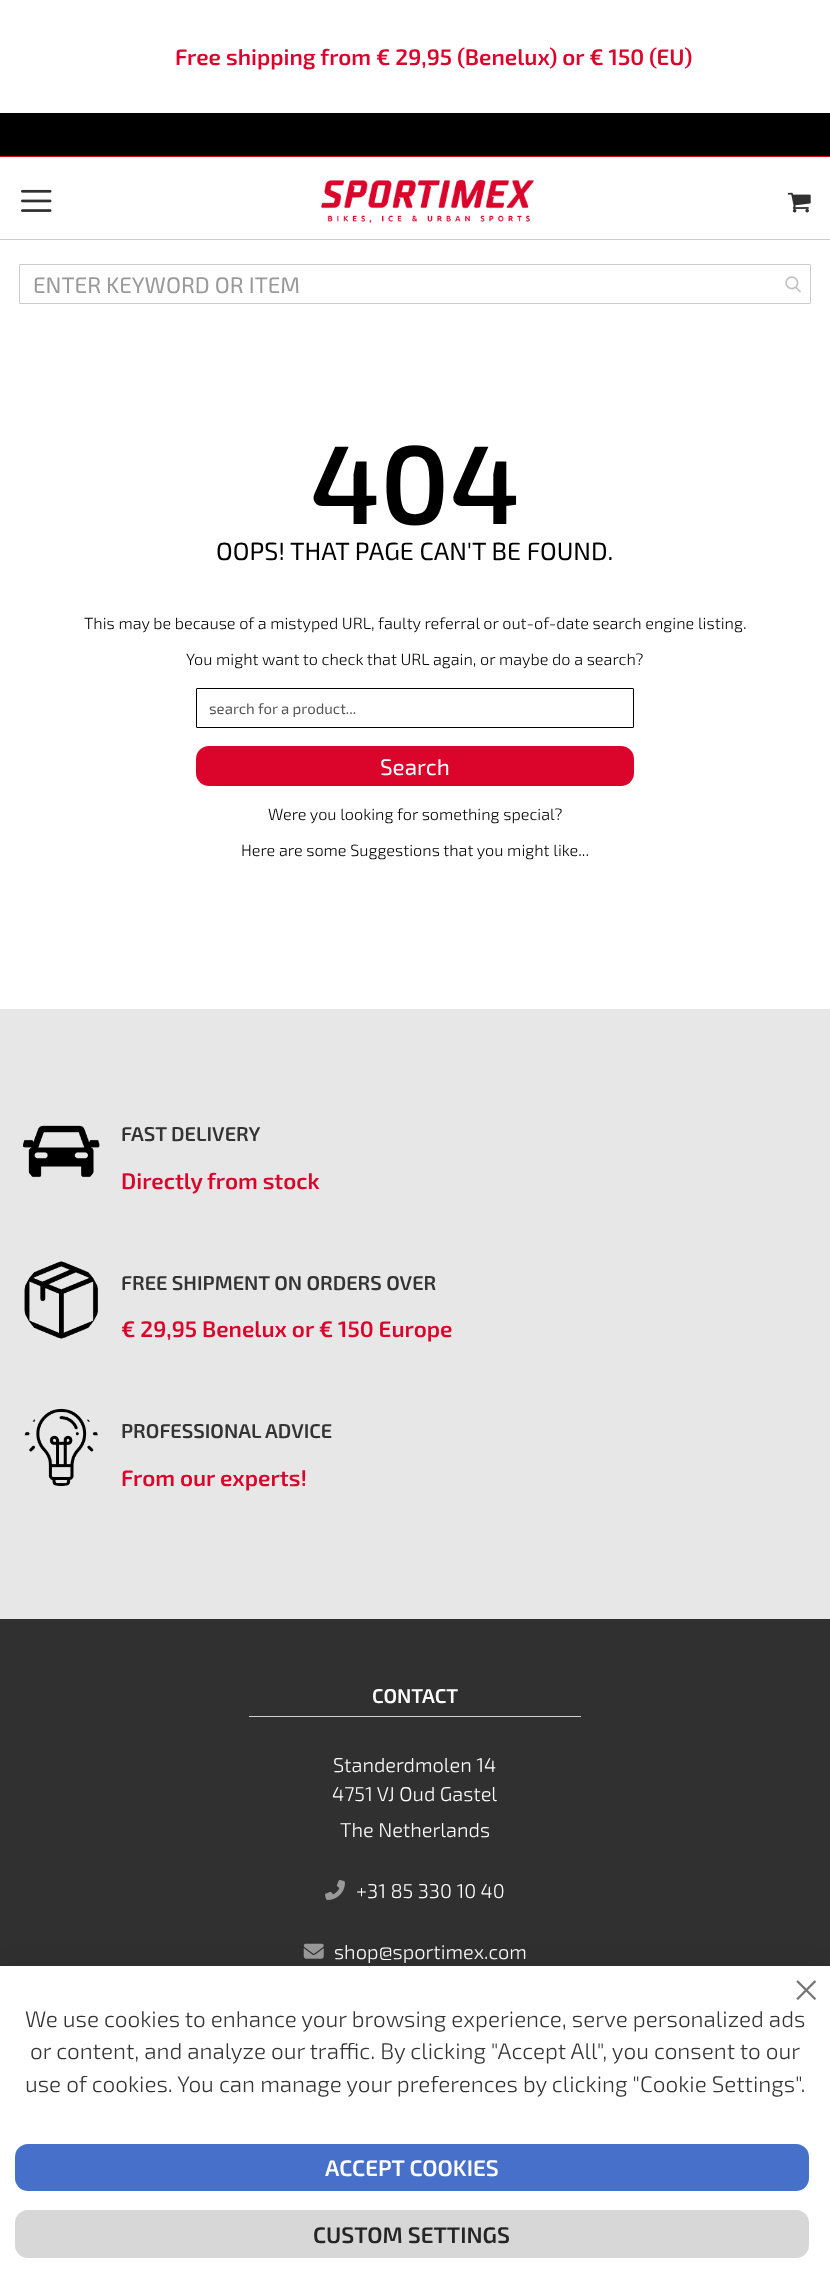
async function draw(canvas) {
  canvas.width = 830
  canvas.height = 2295
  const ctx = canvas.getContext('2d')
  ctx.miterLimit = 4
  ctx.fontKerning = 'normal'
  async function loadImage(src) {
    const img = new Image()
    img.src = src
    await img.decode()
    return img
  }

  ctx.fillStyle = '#fff'
  ctx.fillRect(0, 0, 830, 2295)
  ctx.font = '600 22.5px "Exo 2"'
  ctx.fillStyle = '#db052c'
  ctx.fillText('Free shipping from € 29,95 (Benelux) or € 150 (EU)', 175, 65)
  ctx.fillStyle = '#000'
  ctx.fillRect(0, 113, 830, 43)
  ctx.fillStyle = '#db052c'
  ctx.fillRect(0, 156, 830, 1)
  ctx.drawImage(await loadImage('image0.png'), 21, 189, 31, 23)
  ctx.drawImage(await loadImage('image1.png'), 321, 180, 213, 43)
  ctx.drawImage(await loadImage('image2.png'), 788, 192, 23, 21)
  ctx.fillStyle = '#ccc'
  ctx.fillRect(0, 239, 830, 1)
  ctx.beginPath()
  ctx.roundRect(19.5, 264.5, 791, 39, 0.5)
  ctx.strokeStyle = '#ccc'
  ctx.stroke()
  ctx.font = '22.5px "Exo 2"'
  ctx.fillStyle = '#999'
  ctx.fillText('ENTER KEYWORD OR ITEM', 33, 293)
  ctx.drawImage(await loadImage('image3.png'), 785, 276, 16, 17)
  ctx.font = '600 112px "Exo 2"'
  ctx.fillStyle = '#000'
  ctx.fillText('404', 310, 524)
  ctx.font = '25px "Exo 2"'
  ctx.fillText('OOPS! THAT PAGE CAN\'T BE FOUND.', 216, 560)
  ctx.font = '300 16.25px "Exo 2"'
  ctx.fillText('This may be because of a mistyped URL, faulty referral or out-of-date search engine listing.', 84, 629)
  ctx.fillText('You might want to check that URL again, or maybe do a search?', 186, 665)
  ctx.beginPath()
  ctx.roundRect(196.5, 688.5, 437, 39, 0.5)
  ctx.strokeStyle = '#000'
  ctx.stroke()
  ctx.font = '15px "Exo 2"'
  ctx.fillStyle = '#575757'
  ctx.fillText('search for a product...', 209, 714)
  ctx.fillStyle = '#db052c'
  ctx.beginPath()
  ctx.roundRect(196, 746, 438, 40, 13)
  ctx.fill()
  ctx.font = '22.5px "Exo 2"'
  ctx.fillStyle = '#fff'
  ctx.fillText('Search', 380, 775)
  ctx.font = '300 16.25px "Exo 2"'
  ctx.fillStyle = '#000'
  ctx.fillText('Were you looking for something special?', 268, 820)
  ctx.fillText('Here are some Suggestions that you might like...', 241, 856)
  ctx.fillStyle = '#303030'
  ctx.fillRect(0, 1619, 830, 347)
  ctx.fillStyle = '#e7e7e7'
  ctx.fillRect(0, 1009, 830, 610)
  ctx.drawImage(await loadImage('image4.png'), 23, 1125, 77, 53)
  ctx.font = '600 20px "Exo 2"'
  ctx.fillStyle = '#333'
  ctx.fillText('FAST DELIVERY', 121, 1141)
  ctx.font = '600 22.5px "Exo 2"'
  ctx.fillStyle = '#db052c'
  ctx.fillText('Directly from stock', 121, 1189)
  ctx.drawImage(await loadImage('image5.png'), 24, 1261, 74, 78)
  ctx.font = '600 20px "Exo 2"'
  ctx.fillStyle = '#333'
  ctx.fillText('FREE SHIPMENT ON ORDERS OVER', 121, 1290)
  ctx.font = '600 22.5px "Exo 2"'
  ctx.fillStyle = '#db052c'
  ctx.fillText('€ 29,95 Benelux or € 150 Europe', 121, 1337)
  ctx.drawImage(await loadImage('image6.png'), 24, 1408, 74, 79)
  ctx.font = '600 20px "Exo 2"'
  ctx.fillStyle = '#333'
  ctx.fillText('PROFESSIONAL ADVICE', 121, 1438)
  ctx.font = '600 22.5px "Exo 2"'
  ctx.fillStyle = '#db052c'
  ctx.fillText('From our experts!', 121, 1486)
  ctx.font = '600 20px "Exo 2"'
  ctx.fillStyle = '#fff'
  ctx.fillText('CONTACT', 372, 1703)
  ctx.fillStyle = '#cecece'
  ctx.fillRect(249, 1716, 332, 1)
  ctx.font = '300 20px "Exo 2"'
  ctx.fillStyle = '#fff'
  ctx.fillText('Standerdmolen 14', 333, 1772)
  ctx.fillText('4751 VJ Oud Gastel', 332, 1801)
  ctx.fillText('The Netherlands', 340, 1837)
  ctx.drawImage(await loadImage('image7.png'), 325, 1880, 20, 20)
  ctx.fillText('+31 85 330 10 40', 356, 1898)
  ctx.drawImage(await loadImage('image8.png'), 303, 1943, 21, 16)
  ctx.fillText('shop@sportimex.com', 334, 1959)
  ctx.fillStyle = '#0000000f'
  ctx.filter = 'blur(11px)'
  ctx.beginPath()
  ctx.rect(0, 1964, 830, 329)
  ctx.fill()
  ctx.filter = 'none'
  ctx.fillStyle = '#fff'
  ctx.fillRect(0, 1966, 830, 329)
  ctx.drawImage(await loadImage('image9.png'), 796, 1980, 21, 20)
  ctx.font = '300 22.5px "Exo 2"'
  ctx.fillStyle = '#333'
  ctx.fillText('We use cookies to enhance your browsing experience, serve personalized ads', 25, 2027)
  ctx.fillText('or content, and analyze our traffic. By clicking "Accept All", you consent to our', 30, 2059)
  ctx.fillText('use of cookies. You can manage your preferences by clicking "Cookie Settings".', 25, 2092)
  ctx.fillStyle = '#4670c9'
  ctx.beginPath()
  ctx.roundRect(15, 2144, 794, 47, 13)
  ctx.fill()
  ctx.font = '600 22.5px "Exo 2"'
  ctx.fillStyle = '#fff'
  ctx.fillText('ACCEPT COOKIES', 325, 2176)
  ctx.fillStyle = '#d7d7d7'
  ctx.beginPath()
  ctx.roundRect(15, 2210, 794, 48, 13)
  ctx.fill()
  ctx.fillStyle = '#252525'
  ctx.fillText('CUSTOM SETTINGS', 313, 2243)
}

draw(document.querySelector('canvas'))
